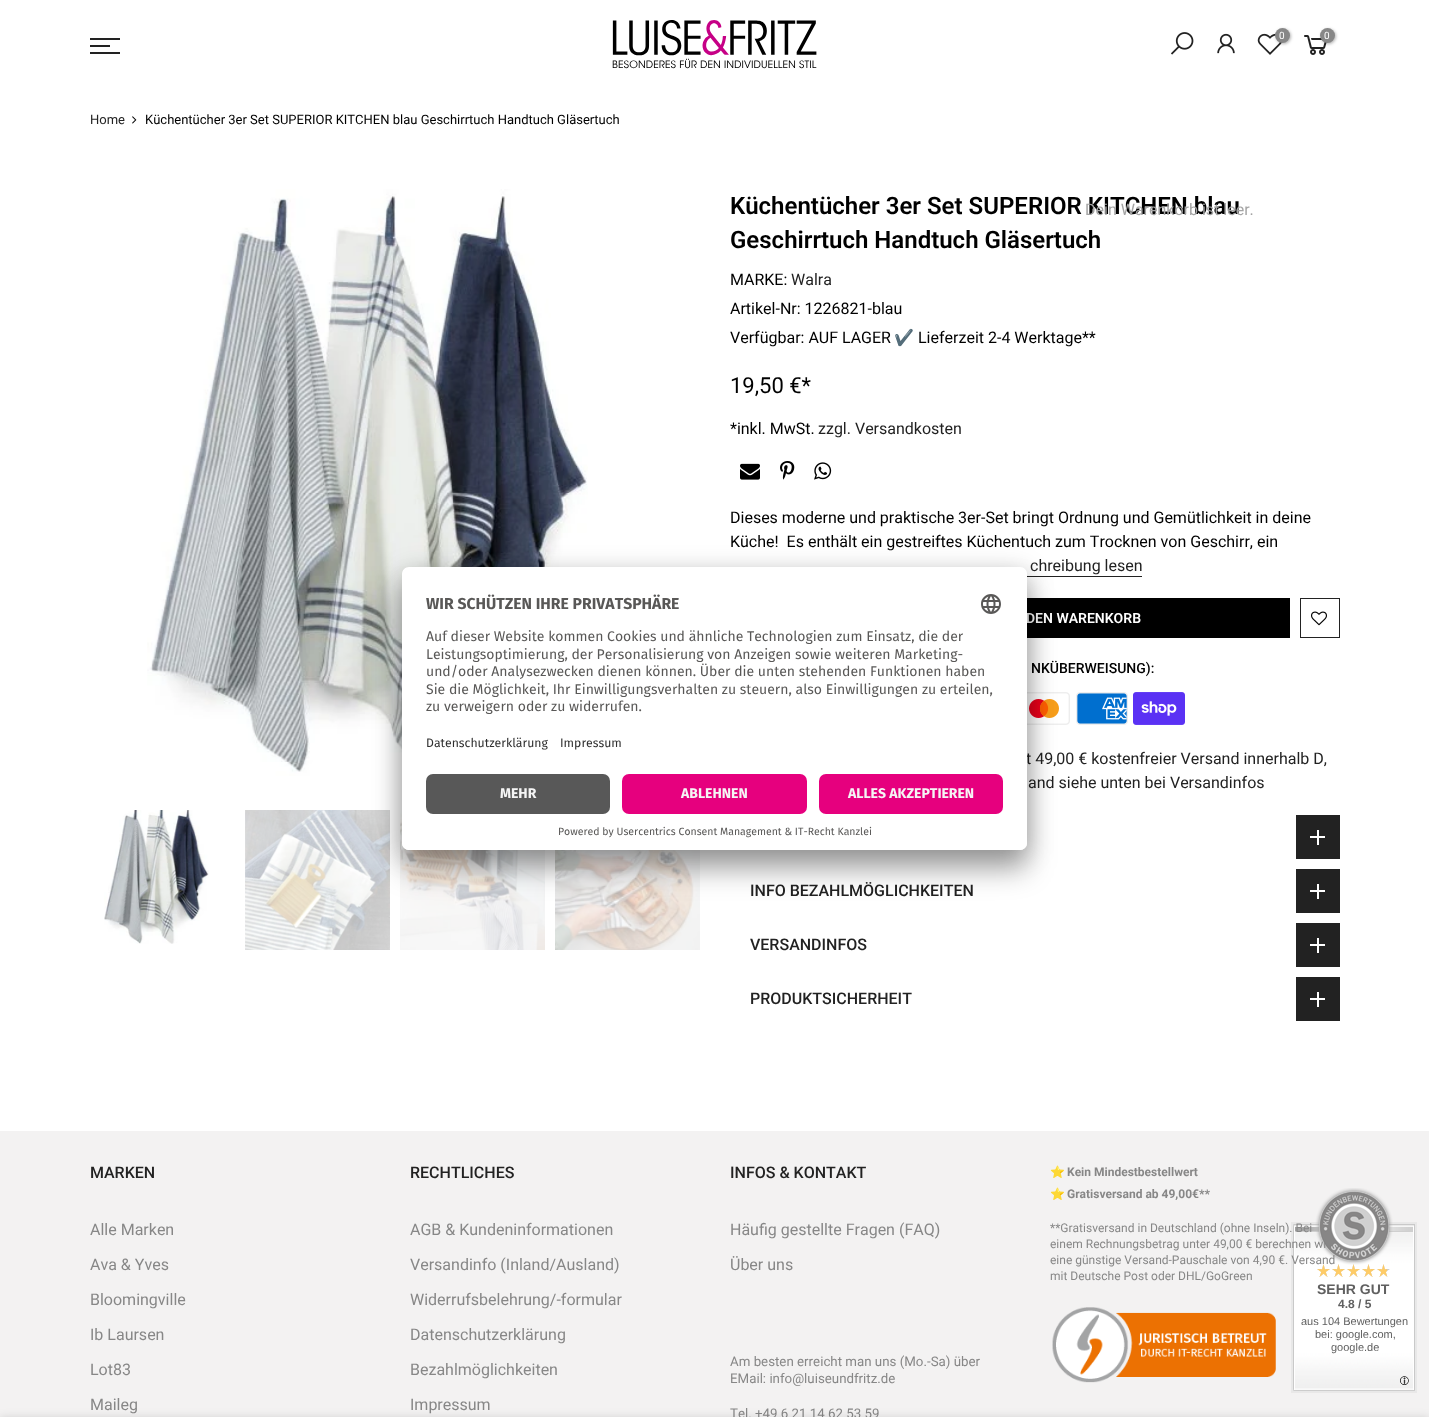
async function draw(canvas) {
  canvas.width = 1429
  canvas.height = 1417
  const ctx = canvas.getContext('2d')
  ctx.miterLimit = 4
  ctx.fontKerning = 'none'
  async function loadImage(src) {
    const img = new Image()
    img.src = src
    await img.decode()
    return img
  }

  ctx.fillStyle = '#fff'
  ctx.fillRect(0, 0, 1429, 1417)
  ctx.drawImage(await loadImage('image0.png'), 612, 20, 205, 49)
  ctx.drawImage(await loadImage('image1.png'), 1171, 32, 23, 23)
  ctx.drawImage(await loadImage('image2.png'), 1217, 33, 18, 21)
  ctx.drawImage(await loadImage('image3.png'), 1257, 33, 25, 22)
  ctx.fillStyle = '#0000004d'
  ctx.filter = 'blur(1.5px)'
  ctx.beginPath()
  ctx.roundRect(1276, 29, 15, 15, 7.5)
  ctx.fill()
  ctx.filter = 'none'
  ctx.fillStyle = '#878787'
  ctx.beginPath()
  ctx.arc(1282.5, 35.5, 7.5, 0, 2 * Math.PI)
  ctx.fill()
  ctx.font = '10px Roboto'
  ctx.fillStyle = '#fff'
  ctx.fillText('0', 1279, 39)
  ctx.drawImage(await loadImage('image4.png'), 1304, 35, 23, 20)
  ctx.fillStyle = '#0000004d'
  ctx.filter = 'blur(1.5px)'
  ctx.beginPath()
  ctx.roundRect(1321, 29, 15, 15, 7.5)
  ctx.fill()
  ctx.filter = 'none'
  ctx.fillStyle = '#878787'
  ctx.beginPath()
  ctx.arc(1327.5, 35.5, 7.5, 0, 2 * Math.PI)
  ctx.fill()
  ctx.fillStyle = '#fff'
  ctx.fillText('0', 1324, 39)
  ctx.fillStyle = '#222'
  ctx.fillRect(90, 38, 30, 2)
  ctx.fillRect(90, 45, 20, 2)
  ctx.fillRect(90, 52, 30, 2)
  ctx.font = '13px Roboto'
  ctx.fillText('Home', 90, 124)
  ctx.drawImage(await loadImage('image5.png'), 132, 116, 5, 8)
  ctx.fillStyle = '#000'
  ctx.fillText('Küchentücher 3er Set SUPERIOR KITCHEN blau Geschirrtuch Handtuch Gläsertuch', 145, 124)
  ctx.drawImage(await loadImage('image6.png'), 147, 189, 441, 587)
  ctx.drawImage(await loadImage('image7.png'), 104, 810, 105, 134)
  ctx.drawImage(await loadImage('image8.png'), 245, 810, 145, 140)
  ctx.drawImage(await loadImage('image9.png'), 400, 810, 145, 140)
  ctx.drawImage(await loadImage('image10.png'), 555, 850, 145, 100)
  ctx.font = '600 24px Roboto'
  ctx.fillText('Küchentücher 3er Set SUPERIOR KITCHEN blau', 730, 214)
  ctx.fillText('Geschirrtuch Handtuch Gläsertuch', 730, 248)
  ctx.font = '16px Roboto'
  ctx.fillText('MARKE:', 730, 285)
  ctx.fillStyle = '#222'
  ctx.fillText('Walra', 791, 285)
  ctx.fillStyle = '#000'
  ctx.fillText('Artikel-Nr: 1226821-blau', 730, 314)
  ctx.fillText('Verfügbar: AUF LAGER', 730, 343)
  ctx.font = '16px Noto Color Emoji'
  ctx.fillText('✔', 894, 343)
  ctx.font = '16px Roboto'
  ctx.fillText('Lieferzeit 2-4 Werktage**', 918, 343)
  ctx.font = '22px Roboto'
  ctx.fillText('19,50 €*', 730, 393)
  ctx.font = '16px Roboto'
  ctx.fillText('*inkl. MwSt.', 730, 434)
  ctx.fillStyle = '#222'
  ctx.fillText('zzgl. Versandkosten', 818, 434)
  ctx.drawImage(await loadImage('image11.png'), 740, 463, 20, 17)
  ctx.drawImage(await loadImage('image12.png'), 780, 461, 15, 19)
  ctx.drawImage(await loadImage('image13.png'), 814, 462, 18, 18)
  ctx.fillStyle = '#000'
  ctx.fillText('Dieses moderne und praktische 3er-Set bringt Ordnung und Gemütlichkeit in deine', 730, 523)
  ctx.fillText('Küche!  Es enthält ein gestreiftes Küchentuch zum Trocknen von Geschirr, ein', 730, 547)
  ctx.fillStyle = '#222'
  ctx.fillText('chreibung lesen', 1030, 571)
  ctx.fillRect(1027, 576, 115, 1)
  ctx.fillStyle = '#000'
  ctx.fillRect(1027, 598, 263, 40)
  ctx.font = '600 14px Roboto'
  ctx.fillStyle = '#fff'
  ctx.fillText('DEN WARENKORB', 1026, 623)
  ctx.strokeStyle = '#222'
  ctx.strokeRect(1300.5, 598.5, 39, 39)
  ctx.drawImage(await loadImage('image14.png'), 1311, 611, 16, 15)
  ctx.font = '500 14px Roboto'
  ctx.fillStyle = '#000'
  ctx.fillText('NKÜBERWEISUNG):', 1031, 673)
  ctx.drawImage(await loadImage('image15.png'), 1027, 692, 43, 33)
  ctx.drawImage(await loadImage('image16.png'), 1076, 692, 52, 33)
  ctx.drawImage(await loadImage('image17.png'), 1133, 692, 52, 33)
  ctx.font = '16px Roboto'
  ctx.fillStyle = '#222'
  ctx.fillText('t 49,00 € kostenfreier Versand innerhalb D,', 1026, 764)
  ctx.fillText('and siehe unten bei Versandinfos', 1028, 788)
  ctx.fillRect(1296, 815, 44, 44)
  ctx.fillStyle = '#fff'
  ctx.fillRect(1317, 830, 2, 15)
  ctx.fillRect(1310, 836, 15, 2)
  ctx.font = '500 16px Roboto'
  ctx.fillStyle = '#222'
  ctx.fillText('INFO BEZAHLMÖGLICHKEITEN', 750, 896)
  ctx.fillRect(1296, 869, 44, 44)
  ctx.fillStyle = '#fff'
  ctx.fillRect(1317, 884, 2, 15)
  ctx.fillRect(1310, 890, 15, 2)
  ctx.fillStyle = '#222'
  ctx.fillText('VERSANDINFOS', 750, 950)
  ctx.fillRect(1296, 923, 44, 44)
  ctx.fillStyle = '#fff'
  ctx.fillRect(1317, 938, 2, 15)
  ctx.fillRect(1310, 944, 15, 2)
  ctx.fillStyle = '#222'
  ctx.fillText('PRODUKTSICHERHEIT', 750, 1004)
  ctx.fillRect(1296, 977, 44, 44)
  ctx.fillStyle = '#fff'
  ctx.fillRect(1317, 992, 2, 15)
  ctx.fillRect(1310, 998, 15, 2)
  ctx.fillStyle = '#f3f2f2'
  ctx.fillRect(0, 1131, 1429, 286)
  ctx.fillStyle = '#222'
  ctx.fillText('MARKEN', 90, 1178)
  ctx.font = '16px Roboto'
  ctx.fillStyle = '#878787'
  ctx.fillText('Alle Marken', 90, 1235)
  ctx.fillText('Ava & Yves', 90, 1270)
  ctx.fillText('Bloomingville', 90, 1305)
  ctx.fillText('Ib Laursen', 90, 1340)
  ctx.fillText('Lot83', 90, 1375)
  ctx.fillText('Maileg', 90, 1410)
  ctx.font = '500 16px Roboto'
  ctx.fillStyle = '#222'
  ctx.fillText('RECHTLICHES', 410, 1178)
  ctx.font = '16px Roboto'
  ctx.fillStyle = '#878787'
  ctx.fillText('AGB & Kundeninformationen', 410, 1235)
  ctx.fillText('Versandinfo (Inland/Ausland)', 410, 1270)
  ctx.fillText('Widerrufsbelehrung/-formular', 410, 1305)
  ctx.fillText('Datenschutzerklärung', 410, 1340)
  ctx.fillText('Bezahlmöglichkeiten', 410, 1375)
  ctx.fillText('Impressum', 410, 1410)
  ctx.font = '500 16px Roboto'
  ctx.fillStyle = '#222'
  ctx.fillText('INFOS & KONTAKT', 730, 1178)
  ctx.font = '16px Roboto'
  ctx.fillStyle = '#878787'
  ctx.fillText('Häufig gestellte Fragen (FAQ)', 730, 1235)
  ctx.fillText('Über uns', 730, 1270)
  ctx.font = '13.3px Roboto'
  ctx.fillText('Am besten erreicht man uns (Mo.-Sa) über', 730, 1366)
  ctx.fillText('EMail: info@luiseundfritz.de', 730, 1383)
  ctx.fillText('Tel. +49 6 21 14 62 53 59', 730, 1418)
  ctx.font = 'bold 12px Noto Color Emoji'
  ctx.fillText('⭐', 1050, 1176)
  ctx.font = 'bold 12px Roboto'
  ctx.fillText('Kein Mindestbestellwert', 1067, 1176)
  ctx.font = 'bold 12px Noto Color Emoji'
  ctx.fillText('⭐', 1050, 1198)
  ctx.font = 'bold 12px Roboto'
  ctx.fillText('Gratisversand ab 49,00€**', 1067, 1198)
  ctx.drawImage(await loadImage('image20.png'), 1291, 1188, 126, 205)
  ctx.font = '12px Roboto'
  ctx.fillText('**Gratisversand in Deutschland (ohne Inseln). Bei', 1050, 1232)
  ctx.fillText('einem Rechnungsbetrag unter 49,00 € berechnen wi', 1050, 1248)
  ctx.drawImage(await loadImage('image21.png'), 1317, 1264, 71, 13)
  ctx.fillText('eine günstige Versand-Pauschale von 4,90 €. Versand', 1050, 1264)
  ctx.fillText('mit Deutsche Post oder DHL/GoGreen', 1050, 1280)
  ctx.drawImage(await loadImage('image18.png'), 1052, 1307, 224, 76)
  ctx.font = '16px Roboto'
  ctx.fillStyle = '#a4a4a4'
  ctx.fillText('Dein Warenkorb ist leer.', 1085, 215)
  ctx.fillStyle = '#0000001f'
  ctx.filter = 'blur(4.5px)'
  ctx.beginPath()
  ctx.rect(0, 1417, 1429, 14)
  ctx.fill()
  ctx.filter = 'none'
  ctx.fillStyle = '#0000004d'
  ctx.filter = 'blur(14px)'
  ctx.beginPath()
  ctx.roundRect(402, 587, 625, 283, 7)
  ctx.fill()
  ctx.filter = 'none'
  ctx.fillStyle = '#00000038'
  ctx.filter = 'blur(13px)'
  ctx.beginPath()
  ctx.roundRect(402, 572, 625, 283, 7)
  ctx.fill()
  ctx.filter = 'none'
  ctx.fillStyle = '#fff'
  ctx.beginPath()
  ctx.roundRect(402, 567, 625, 283, 7)
  ctx.fill()
  ctx.save()
  ctx.beginPath()
  ctx.roundRect(402, 567, 625, 283, 7)
  ctx.clip()
  ctx.beginPath()
  ctx.roundRect(402, 567, 625, 199, [7, 7, 0, 0])
  ctx.clip()
  ctx.fillRect(402, 568, 625, 198)
  ctx.restore()
  ctx.font = 'bold 15.75px Fira Sans'
  ctx.fillStyle = '#595857'
  ctx.fillText('WIR SCHÜTZEN IHRE PRIVATSPHÄRE', 426, 609)
  ctx.drawImage(await loadImage('image19.png'), 981, 594, 20, 20)
  ctx.font = '14px Fira Sans'
  ctx.fillText('Auf dieser Website kommen Cookies und ähnliche Technologien zum Einsatz, die der', 426, 641)
  ctx.fillText('Leistungsoptimierung, der Personalisierung von Anzeigen sowie weiteren Marketing-', 426, 659)
  ctx.fillText('und/oder Analysezwecken dienen können. Über die unten stehenden Funktionen haben', 426, 676)
  ctx.fillText('Sie die Möglichkeit, Ihr Einwilligungsverhalten zu steuern, also Einwilligungen zu erteilen,', 426, 694)
  ctx.fillText('zu verweigern oder zu widerrufen.', 426, 711)
  ctx.font = '12.25px Fira Sans'
  ctx.fillStyle = '#303030'
  ctx.fillText('Datenschutzerklärung', 426, 747)
  ctx.fillText('Impressum', 560, 747)
  ctx.fillStyle = '#fff'
  ctx.beginPath()
  ctx.roundRect(402, 766, 625, 84, [0, 0, 7, 7])
  ctx.fill()
  ctx.fillStyle = '#585858'
  ctx.beginPath()
  ctx.roundRect(426, 774, 184, 40, 7)
  ctx.fill()
  ctx.font = 'bold 14px Fira Sans'
  ctx.fillStyle = '#f5f5f5'
  ctx.fillText('MEHR', 500, 798)
  ctx.fillStyle = '#e6007e'
  ctx.beginPath()
  ctx.roundRect(622, 774, 185, 40, 7)
  ctx.fill()
  ctx.fillStyle = '#f5f5f5'
  ctx.fillText('ABLEHNEN', 681, 798)
  ctx.fillStyle = '#e6007e'
  ctx.beginPath()
  ctx.roundRect(819, 774, 184, 40, 7)
  ctx.fill()
  ctx.fillStyle = '#f5f5f5'
  ctx.fillText('ALLES AKZEPTIEREN', 848, 798)
  ctx.font = '10.5px Fira Sans'
  ctx.fillStyle = '#595857'
  ctx.fillText('Powered by Usercentrics Consent Management & IT-Recht Kanzlei', 558, 835)
  ctx.font = 'bold 14px Liberation Sans'
  ctx.fillStyle = '#606060'
  ctx.fillText('SEHR GUT', 1317, 1294)
  ctx.font = 'bold 12px Liberation Sans'
  ctx.fillText('4.8 / 5', 1338, 1308)
  ctx.font = '11px Liberation Sans'
  ctx.fillText('aus 104 Bewertungen', 1301, 1325)
  ctx.fillText('bei: google.com,', 1315, 1338)
  ctx.fillText('google.de', 1331, 1351)
}

draw(document.querySelector('canvas'))
